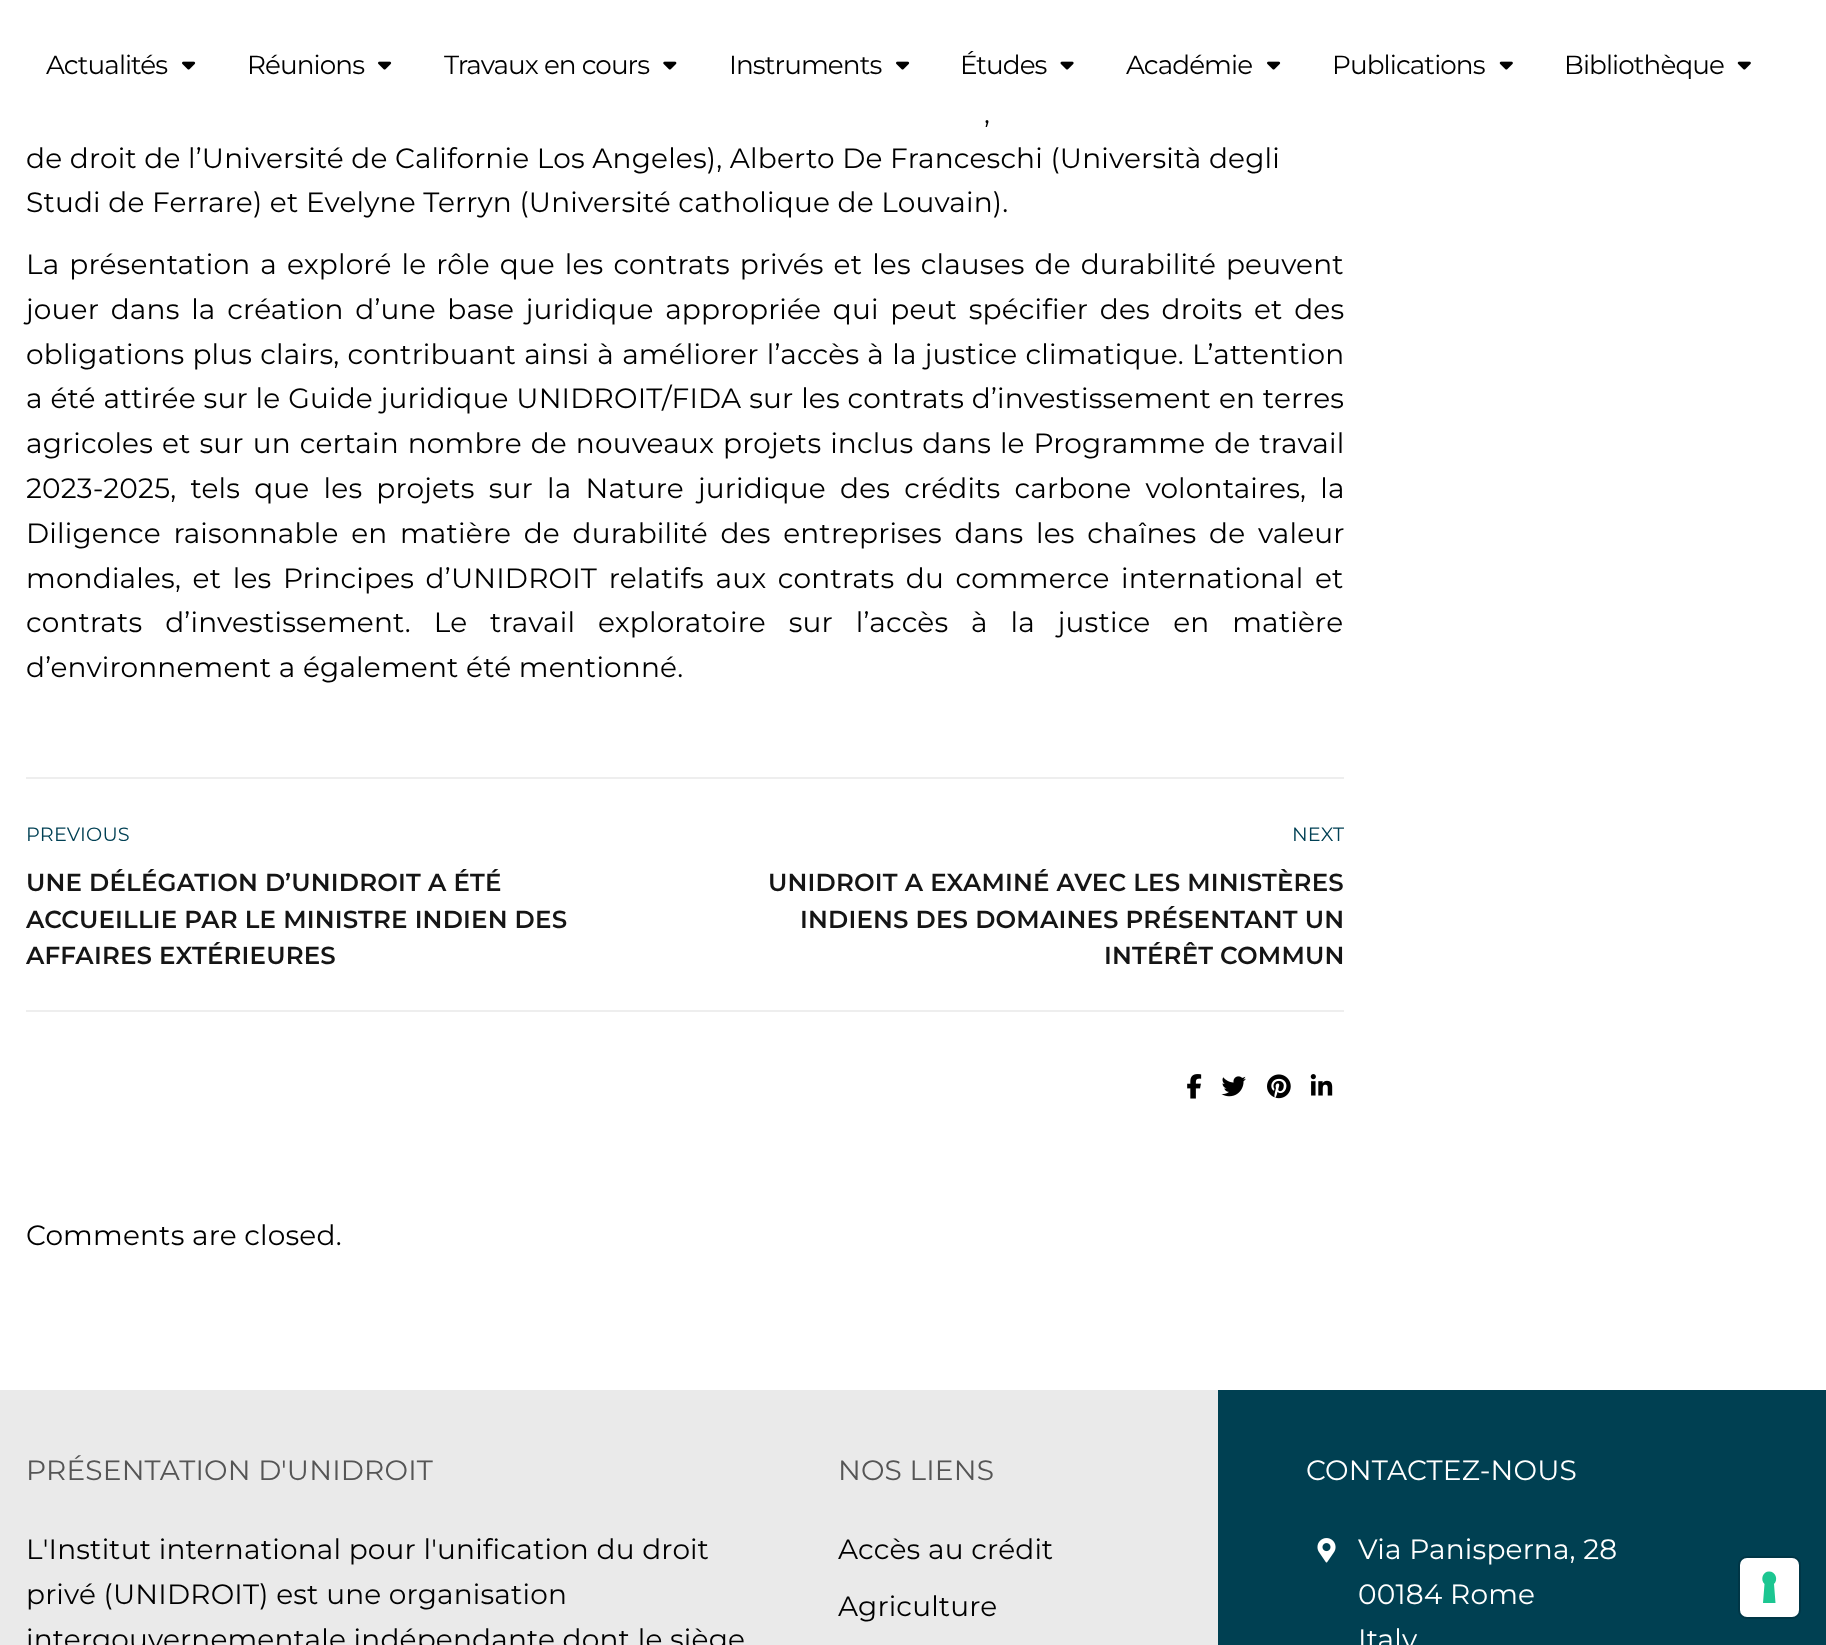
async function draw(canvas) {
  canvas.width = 1826
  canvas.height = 1645
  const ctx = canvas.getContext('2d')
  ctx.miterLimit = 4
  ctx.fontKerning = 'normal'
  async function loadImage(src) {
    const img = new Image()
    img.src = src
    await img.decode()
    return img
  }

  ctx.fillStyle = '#fff'
  ctx.fillRect(0, 0, 1826, 1645)
  ctx.letterSpacing = '-0.9px'
  ctx.font = '26.25px Montserrat'
  ctx.fillStyle = '#000'
  ctx.fillText('Actualités', 46, 74)
  ctx.drawImage(await loadImage('image0.png'), 182, 61, 14, 9)
  ctx.fillText('Réunions', 247, 74)
  ctx.drawImage(await loadImage('image0.png'), 378, 61, 14, 9)
  ctx.fillText('Travaux en cours', 444, 74)
  ctx.drawImage(await loadImage('image1.png'), 663, 61, 14, 9)
  ctx.fillText('Instruments', 729, 74)
  ctx.drawImage(await loadImage('image0.png'), 896, 61, 14, 9)
  ctx.fillText('Études', 960, 74)
  ctx.drawImage(await loadImage('image2.png'), 1060, 61, 14, 9)
  ctx.fillText('Académie', 1126, 74)
  ctx.drawImage(await loadImage('image0.png'), 1267, 61, 14, 9)
  ctx.fillText('Publications', 1332, 74)
  ctx.drawImage(await loadImage('image3.png'), 1499, 61, 14, 9)
  ctx.fillText('Bibliothèque', 1564, 74)
  ctx.drawImage(await loadImage('image3.png'), 1737, 61, 14, 9)
  ctx.letterSpacing = '0.18px'
  ctx.font = '28px Montserrat'
  ctx.fillText(',', 984, 123)
  ctx.fillText('de droit de l’Université de Californie Los Angeles), Alberto De Franceschi (Università degli', 26, 168)
  ctx.fillText('Studi de Ferrare) et Evelyne Terryn (Université catholique de Louvain).', 26, 212)
  ctx.wordSpacing = '2.4px'
  ctx.fillText('La présentation a exploré le rôle que les contrats privés et les clauses de durabilité peuvent', 26, 274)
  ctx.wordSpacing = '4.1px'
  ctx.fillText('jouer dans la création d’une base juridique appropriée qui peut spécifier des droits et des', 26, 319)
  ctx.wordSpacing = '0.6px'
  ctx.fillText('obligations plus clairs, contribuant ainsi à améliorer l’accès à la justice climatique. L’attention', 26, 364)
  ctx.wordSpacing = '0.25px'
  ctx.fillText('a été attirée sur le Guide juridique UNIDROIT/FIDA sur les contrats d’investissement en terres', 26, 408)
  ctx.wordSpacing = '1.4px'
  ctx.fillText('agricoles et sur un certain nombre de nouveaux projets inclus dans le Programme de travail', 26, 453)
  ctx.wordSpacing = '6.6px'
  ctx.fillText('2023-2025, tels que les projets sur la Nature juridique des crédits carbone volontaires, la', 26, 498)
  ctx.wordSpacing = '5.1px'
  ctx.fillText('Diligence raisonnable en matière de durabilité des entreprises dans les chaînes de valeur', 26, 543)
  ctx.wordSpacing = '4px'
  ctx.fillText('mondiales, et les Principes d’UNIDROIT relatifs aux contrats du commerce international et', 26, 588)
  ctx.wordSpacing = '15.25px'
  ctx.fillText('contrats d’investissement. Le travail exploratoire sur l’accès à la justice en matière', 26, 632)
  ctx.wordSpacing = '0px'
  ctx.fillText('d’environnement a également été mentionné.', 26, 677)
  ctx.fillStyle = '#eee'
  ctx.fillRect(26, 777, 1318, 2)
  ctx.fillRect(26, 1010, 1318, 2)
  ctx.font = '19.25px Montserrat'
  ctx.fillStyle = '#004054'
  ctx.fillText('PREVIOUS', 26, 841)
  ctx.font = '600 24.5px Montserrat'
  ctx.fillStyle = '#151515'
  ctx.fillText('UNE DÉLÉGATION D’UNIDROIT A ÉTÉ', 26, 891)
  ctx.fillText('ACCUEILLIE PAR LE MINISTRE INDIEN DES', 26, 928)
  ctx.fillText('AFFAIRES EXTÉRIEURES', 26, 964)
  ctx.font = '19.25px Montserrat'
  ctx.fillStyle = '#004054'
  ctx.fillText('NEXT', 1292, 841)
  ctx.font = '600 24.5px Montserrat'
  ctx.fillStyle = '#151515'
  ctx.fillText('UNIDROIT A EXAMINÉ AVEC LES MINISTÈRES', 768, 891)
  ctx.fillText('INDIENS DES DOMAINES PRÉSENTANT UN', 800, 928)
  ctx.fillText('INTÉRÊT COMMUN', 1104, 964)
  ctx.drawImage(await loadImage('image4.png'), 1187, 1074, 15, 25)
  ctx.drawImage(await loadImage('image5.png'), 1221, 1076, 25, 21)
  ctx.drawImage(await loadImage('image6.png'), 1267, 1074, 24, 25)
  ctx.drawImage(await loadImage('image7.png'), 1310, 1074, 23, 22)
  ctx.font = '28px Montserrat'
  ctx.fillStyle = '#000'
  ctx.fillText('Comments are closed.', 26, 1245)
  ctx.fillStyle = '#004052'
  ctx.fillRect(1218, 1390, 608, 255)
  ctx.fillStyle = '#eaeaea'
  ctx.fillRect(0, 1390, 1218, 255)
  ctx.fillStyle = '#555'
  ctx.fillText('PRÉSENTATION D\'UNIDROIT', 26, 1480)
  ctx.fillStyle = '#000'
  ctx.fillText('L\'Institut international pour l\'unification du droit', 26, 1559)
  ctx.fillText('privé (UNIDROIT) est une organisation', 26, 1604)
  ctx.fillText('intergouvernementale indépendante dont le siège', 26, 1649)
  ctx.fillStyle = '#555'
  ctx.fillText('NOS LIENS', 838, 1480)
  ctx.fillStyle = '#000'
  ctx.fillText('Accès au crédit', 838, 1559)
  ctx.fillText('Agriculture', 838, 1616)
  ctx.fillStyle = '#fff'
  ctx.fillText('CONTACTEZ-NOUS', 1306, 1480)
  ctx.drawImage(await loadImage('image8.png'), 1317, 1538, 19, 25)
  ctx.fillText('Via Panisperna, 28', 1358, 1559)
  ctx.fillText('00184 Rome', 1358, 1604)
  ctx.fillText('Italy', 1358, 1649)
  ctx.beginPath()
  ctx.roundRect(1739, 1557, 61, 61, 8)
  ctx.strokeStyle = '#003646'
  ctx.lineWidth = 2
  ctx.stroke()
  ctx.beginPath()
  ctx.roundRect(1740, 1558, 59, 59, 7)
  ctx.fill()
  ctx.fillStyle = '#1cc691'
  ctx.beginPath()
  ctx.moveTo(1769, 1571.5)
  ctx.bezierCurveTo(1775.5, 1571.5, 1778.5, 1579.5, 1774, 1584)
  ctx.lineTo(1775.5, 1603)
  ctx.lineTo(1763, 1603)
  ctx.lineTo(1764.5, 1584)
  ctx.bezierCurveTo(1760, 1579.5, 1763, 1571.5, 1769, 1571.5)
  ctx.closePath()
  ctx.fill('evenodd')
}

draw(document.querySelector('canvas'))
